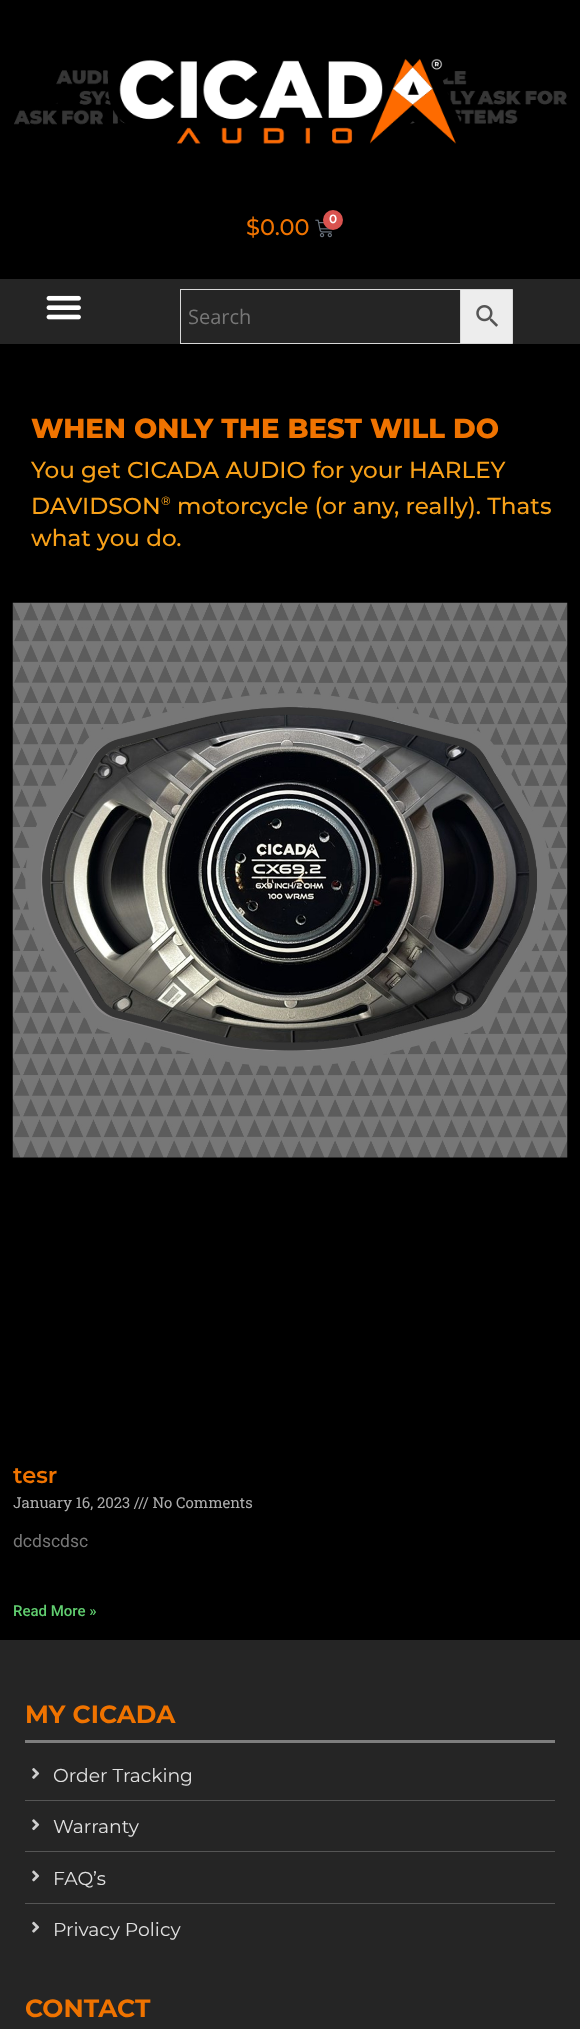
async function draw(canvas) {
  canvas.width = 580
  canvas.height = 2029
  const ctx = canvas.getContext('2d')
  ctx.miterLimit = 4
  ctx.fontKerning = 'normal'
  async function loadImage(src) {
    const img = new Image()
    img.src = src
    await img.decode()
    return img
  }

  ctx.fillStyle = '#000'
  ctx.fillRect(0, 0, 580, 2029)
  ctx.drawImage(await loadImage('image0.png'), 14, 58, 553, 86)
  ctx.font = '500 22.5px Montserrat'
  ctx.fillStyle = '#ef7300'
  ctx.fillText('$0.00', 246, 235)
  ctx.drawImage(await loadImage('image1.png'), 315, 219, 17, 19)
  ctx.fillStyle = '#d9534f'
  ctx.beginPath()
  ctx.arc(333, 220, 10, 0, 2 * Math.PI)
  ctx.fill()
  ctx.font = '600 12px Montserrat'
  ctx.fillStyle = '#fff'
  ctx.fillText('0', 329, 223)
  ctx.fillStyle = '#252525'
  ctx.fillRect(0, 279, 580, 65)
  ctx.fillStyle = '#ededed'
  ctx.beginPath()
  ctx.rect(460.5, 289.5, 52, 54)
  ctx.fill()
  ctx.strokeStyle = '#d8d8d8'
  ctx.stroke()
  ctx.strokeRect(180.5, 289.5, 280, 54)
  ctx.font = '20px Open Sans'
  ctx.fillStyle = '#777'
  ctx.fillText('Search', 188, 324)
  ctx.drawImage(await loadImage('image2.png'), 476, 305, 22, 22)
  ctx.drawImage(await loadImage('image3.png'), 46, 295, 35, 25)
  ctx.font = '800 27.5px Montserrat'
  ctx.fillStyle = '#ef7300'
  ctx.fillText('WHEN ONLY THE BEST WILL DO', 31, 438)
  ctx.font = '500 23.1px Montserrat'
  ctx.fillStyle = '#f8a119'
  ctx.fillText('You get CICADA AUDIO for your HARLEY', 31, 478)
  ctx.fillText('DAVIDSON', 31, 514)
  ctx.font = '500 12px Montserrat'
  ctx.fillText('®', 161, 505)
  ctx.font = '500 23.1px Montserrat'
  ctx.fillText('motorcycle (or any, really). Thats', 177, 514)
  ctx.fillText('what you do.', 31, 546)
  ctx.drawImage(await loadImage('image4.png'), 12, 602, 556, 556)
  ctx.font = '600 22.5px Montserrat'
  ctx.fillStyle = '#ef7300'
  ctx.fillText('tesr', 13, 1483)
  ctx.font = '15px Roboto Slab'
  ctx.fillStyle = '#adadad'
  ctx.fillText('January 16, 2023 /// No Comments', 13, 1508)
  ctx.font = '17.5px Roboto'
  ctx.fillStyle = '#777'
  ctx.fillText('dcdscdsc', 13, 1547)
  ctx.font = '500 15px Roboto'
  ctx.fillStyle = '#61ce70'
  ctx.fillText('Read More »', 13, 1616)
  ctx.fillStyle = '#252525'
  ctx.fillRect(0, 1640, 580, 389)
  ctx.font = 'bold 25px Montserrat'
  ctx.fillStyle = '#ef7300'
  ctx.fillText('MY CICADA', 25, 1723)
  ctx.fillStyle = '#7e7e7e'
  ctx.fillRect(25, 1740, 530, 3)
  ctx.drawImage(await loadImage('image5.png'), 32, 1768, 8, 11)
  ctx.font = '18.75px Montserrat'
  ctx.fillStyle = '#e1e1e1'
  ctx.fillText('Order Tracking', 53, 1782)
  ctx.fillStyle = '#555'
  ctx.fillRect(25, 1800, 530, 1)
  ctx.drawImage(await loadImage('image6.png'), 32, 1819, 8, 12)
  ctx.fillStyle = '#e1e1e1'
  ctx.fillText('Warranty', 53, 1833)
  ctx.fillStyle = '#555'
  ctx.fillRect(25, 1851, 530, 1)
  ctx.drawImage(await loadImage('image7.png'), 32, 1870, 8, 12)
  ctx.fillStyle = '#e1e1e1'
  ctx.fillText('FAQ’s', 53, 1885)
  ctx.fillStyle = '#555'
  ctx.fillRect(25, 1903, 530, 1)
  ctx.drawImage(await loadImage('image8.png'), 32, 1921, 8, 12)
  ctx.fillStyle = '#e1e1e1'
  ctx.fillText('Privacy Policy', 53, 1936)
  ctx.font = 'bold 25px Montserrat'
  ctx.fillStyle = '#ef7300'
  ctx.fillText('CONTACT', 25, 2017)
}

draw(document.querySelector('canvas'))
